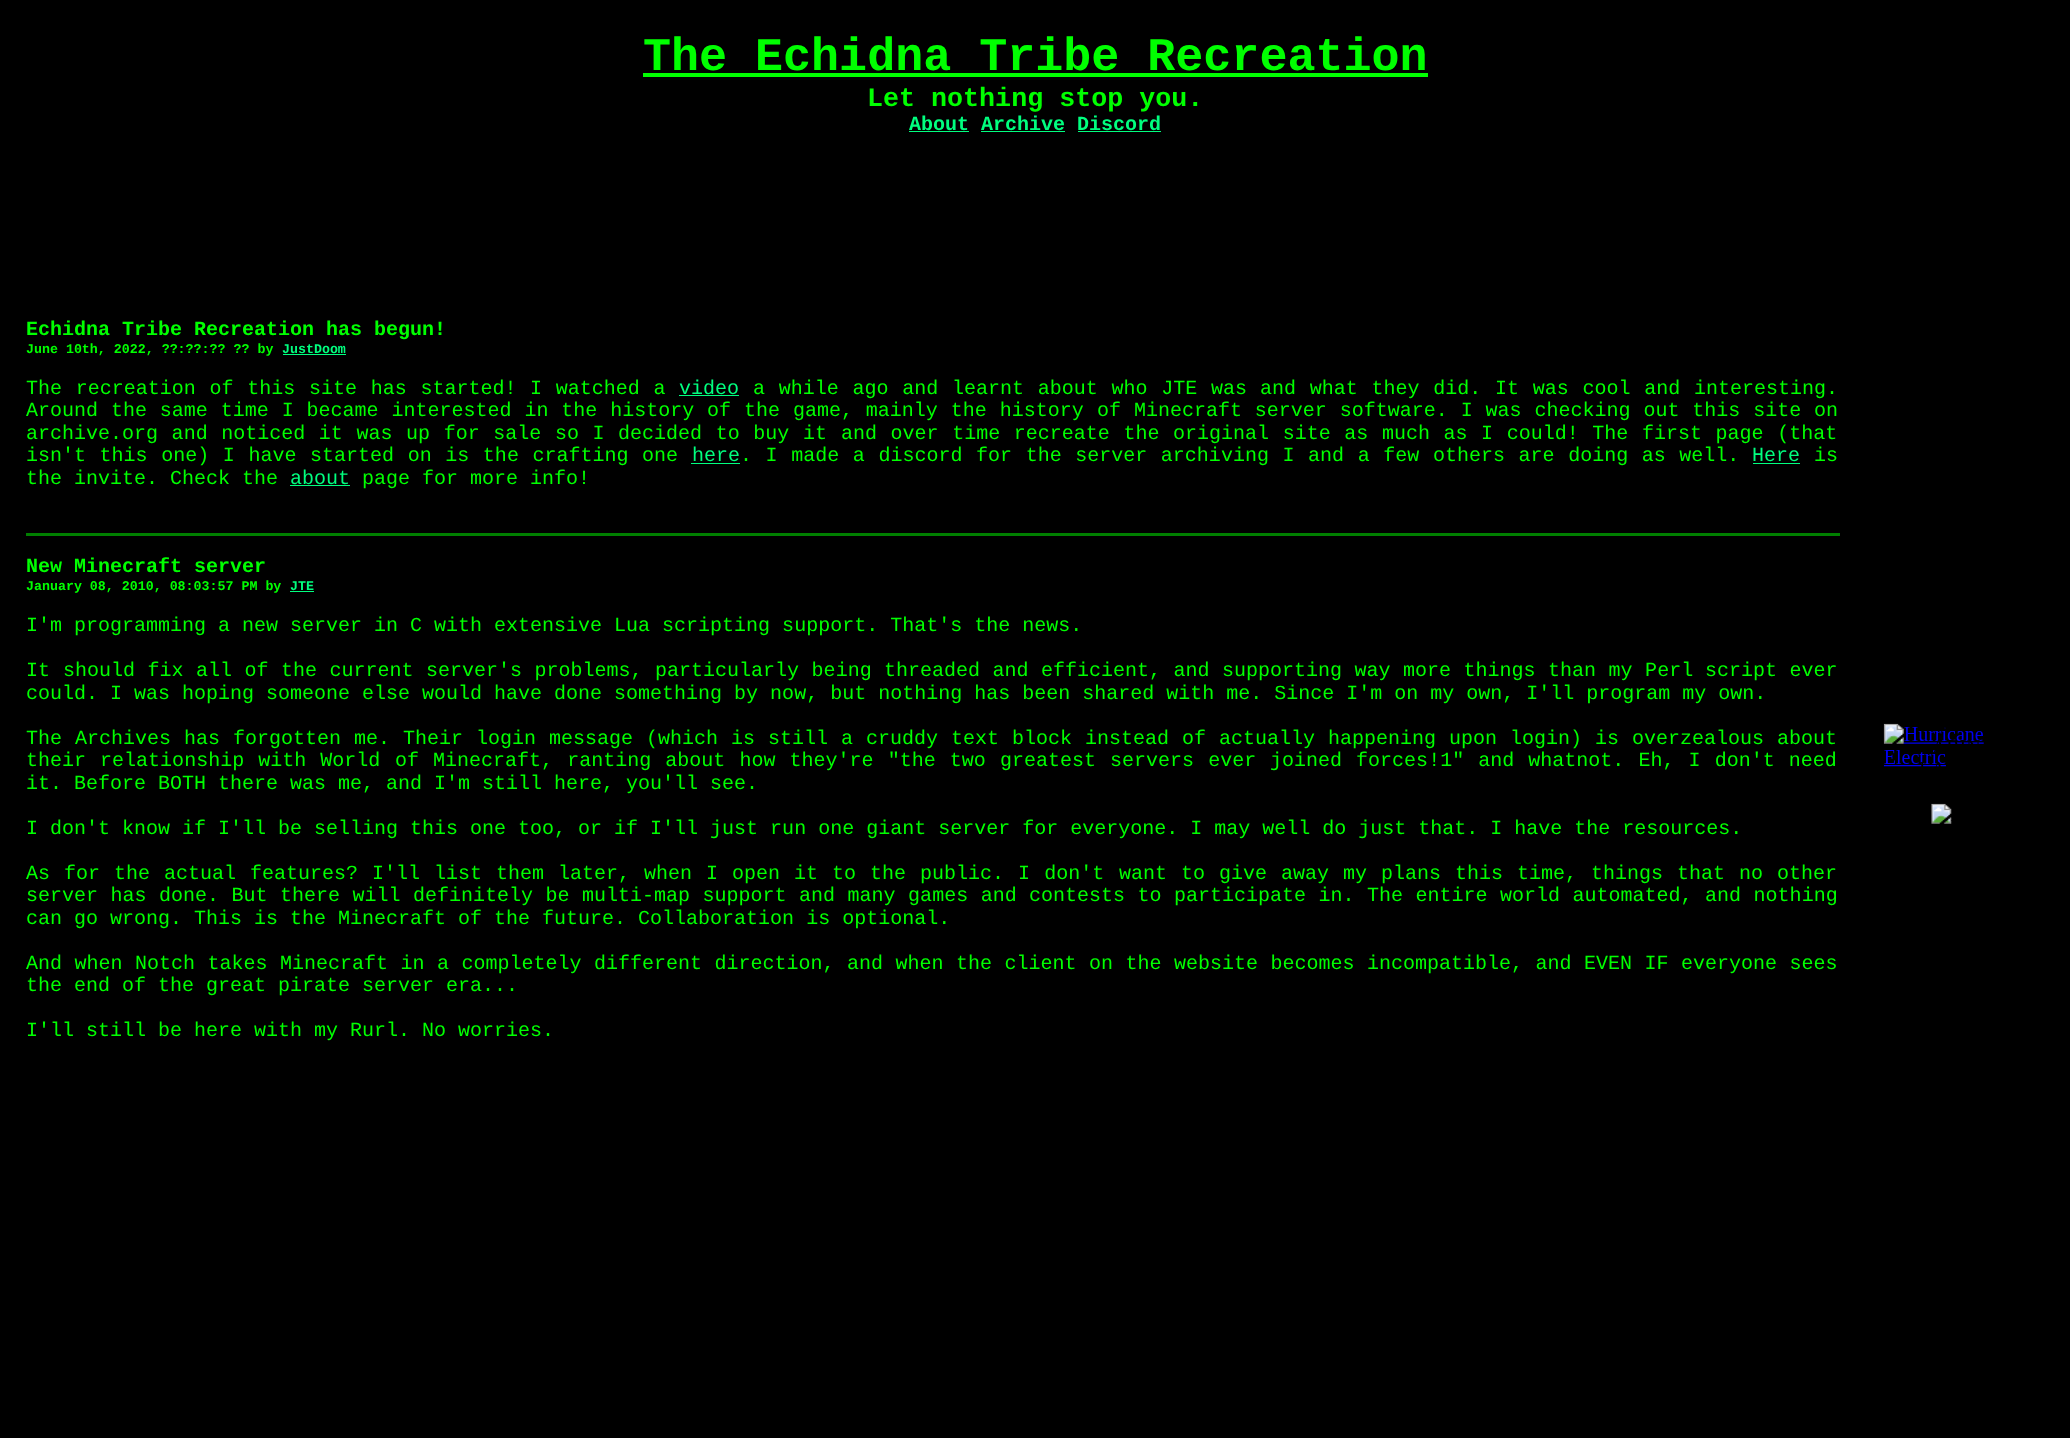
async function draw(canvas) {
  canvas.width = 2070
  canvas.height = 1438
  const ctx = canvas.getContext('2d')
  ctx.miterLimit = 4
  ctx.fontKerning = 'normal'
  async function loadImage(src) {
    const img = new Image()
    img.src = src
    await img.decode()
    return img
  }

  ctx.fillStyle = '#000'
  ctx.fillRect(0, 0, 2070, 1438)
  ctx.font = 'bold 46.7px Liberation Mono'
  ctx.fillStyle = '#0f0'
  ctx.fillText('The Echidna Tribe Recreation', 643, 70)
  ctx.fillRect(643, 73, 785, 4)
  ctx.font = 'bold 26.7px Liberation Mono'
  ctx.fillText('Let nothing stop you.', 867, 106)
  ctx.font = 'bold 20px Liberation Mono'
  ctx.fillStyle = '#00ff7f'
  ctx.fillText('About Archive Discord', 909, 130)
  ctx.fillRect(909, 131, 60, 1)
  ctx.fillRect(981, 131, 84, 1)
  ctx.fillRect(1078, 131, 83, 1)
  ctx.fillStyle = '#0f0'
  ctx.fillText('Echidna Tribe Recreation has begun!', 26, 335)
  ctx.font = 'bold 13.3px Liberation Mono'
  ctx.fillText('June 10th, 2022, ??:??:?? ?? by', 26, 353)
  ctx.fillStyle = '#00ff7f'
  ctx.fillText('JustDoom', 282, 353)
  ctx.fillRect(283, 354, 63, 1)
  ctx.wordSpacing = '1.75px'
  ctx.font = '20px Liberation Mono'
  ctx.fillStyle = '#0f0'
  ctx.fillText('The recreation of this site has started!', 26, 394)
  ctx.fillText('I watched a', 530, 394)
  ctx.wordSpacing = '0px'
  ctx.fillStyle = '#00ff7f'
  ctx.fillText('video', 679, 394)
  ctx.fillRect(679, 395, 60, 1)
  ctx.wordSpacing = '1.75px'
  ctx.fillStyle = '#0f0'
  ctx.fillText('a while ago and learnt about who JTE was', 753, 394)
  ctx.fillText('and what they did. It was cool and interesting.', 1260, 394)
  ctx.wordSpacing = '0.9px'
  ctx.fillText('Around the same time I became interested in the history of the game, mainly the history', 26, 416)
  ctx.fillText('of Minecraft server software. I was checking out this site on', 1097, 416)
  ctx.wordSpacing = '1.6px'
  ctx.fillText('archive.org and noticed it was up for sale so I decided to buy it', 26, 439)
  ctx.fillText('and over time recreate the original site as much as I could! The first page (that', 841, 439)
  ctx.fillText('isn\'t this one) I have started on is the crafting one', 26, 461)
  ctx.wordSpacing = '0px'
  ctx.fillStyle = '#00ff7f'
  ctx.fillText('here', 692, 461)
  ctx.fillRect(691, 463, 49, 1)
  ctx.wordSpacing = '1.6px'
  ctx.fillStyle = '#0f0'
  ctx.fillText('. I made a discord for the server archiving I and a few others are doing as well.', 740, 461)
  ctx.wordSpacing = '0px'
  ctx.fillStyle = '#00ff7f'
  ctx.fillText('Here', 1752, 461)
  ctx.fillRect(1753, 463, 47, 1)
  ctx.fillStyle = '#0f0'
  ctx.fillText('is', 1814, 461)
  ctx.fillText('the invite. Check the', 26, 484)
  ctx.fillStyle = '#00ff7f'
  ctx.fillText('about', 290, 484)
  ctx.fillRect(290, 485, 60, 1)
  ctx.fillStyle = '#0f0'
  ctx.fillText('page for more info!', 362, 484)
  ctx.fillStyle = '#007f00'
  ctx.fillRect(26, 533, 1814, 3)
  ctx.font = 'bold 20px Liberation Mono'
  ctx.fillStyle = '#0f0'
  ctx.fillText('New Minecraft server', 26, 572)
  ctx.font = 'bold 13.3px Liberation Mono'
  ctx.fillText('January 08, 2010, 08:03:57 PM by', 26, 590)
  ctx.fillStyle = '#00ff7f'
  ctx.fillText('JTE', 290, 590)
  ctx.fillRect(290, 591, 24, 1)
  ctx.font = '20px Liberation Mono'
  ctx.fillStyle = '#0f0'
  ctx.fillText('I\'m programming a new server in C with extensive Lua scripting support. That\'s the news.', 26, 631)
  ctx.fillText('It', 26, 676)
  ctx.wordSpacing = '0.5px'
  ctx.fillText('should fix all of the current server\'s problems, particularly being', 63, 676)
  ctx.fillText('threaded and efficient, and supporting way more things than my Perl', 884, 676)
  ctx.fillText('script ever', 1705, 676)
  ctx.wordSpacing = '0px'
  ctx.fillText('could. I was hoping someone else would have done something by now, but nothing has been shared with me. Since I\'m on my own, I\'ll program my own.', 26, 699)
  ctx.wordSpacing = '1px'
  ctx.fillText('The Archives has forgotten me. Their login', 26, 744)
  ctx.fillText('message (which is still a cruddy text block instead of actually', 549, 744)
  ctx.fillText('happening upon login) is overzealous about', 1328, 744)
  ctx.wordSpacing = '2.1px'
  ctx.fillText('their relationship with World', 26, 766)
  ctx.fillText('of Minecraft, ranting about how they\'re "the two greatest servers ever', 395, 766)
  ctx.fillText('joined forces!1" and whatnot. Eh, I don\'t need', 1270, 766)
  ctx.wordSpacing = '0px'
  ctx.fillText('it. Before BOTH there was me, and I\'m still here, you\'ll see.', 26, 789)
  ctx.fillText('I don\'t know if I\'ll be selling this one too, or if I\'ll just run one giant server for everyone. I may well do just that. I have the resources.', 26, 834)
  ctx.wordSpacing = '2px'
  ctx.fillText('As for the actual', 26, 879)
  ctx.fillText('features? I\'ll list them later, when I open it to the public. I don\'t', 250, 879)
  ctx.fillText('want to give away my plans this time, things that no other', 1119, 879)
  ctx.wordSpacing = '0.5px'
  ctx.fillText('server has', 26, 901)
  ctx.fillText('done. But there will definitely be multi-map support and many games and', 159, 901)
  ctx.fillText('contests to participate in. The entire world automated, and nothing', 1029, 901)
  ctx.wordSpacing = '0px'
  ctx.fillText('can go wrong. This is the Minecraft of the future. Collaboration is optional.', 26, 924)
  ctx.wordSpacing = '0.5px'
  ctx.fillText('And when Notch takes Minecraft in a completely', 26, 969)
  ctx.fillText('different direction, and when the client on the website becomes', 594, 969)
  ctx.fillText('incompatible, and EVEN IF everyone sees', 1367, 969)
  ctx.wordSpacing = '0px'
  ctx.fillText('the end of the great pirate server era...', 26, 991)
  ctx.fillText('I\'ll still be here with my Rurl. No worries.', 26, 1036)
  ctx.drawImage(await loadImage('image0.png'), 1883, 723, 101, 101)
}

draw(document.querySelector('canvas'))
